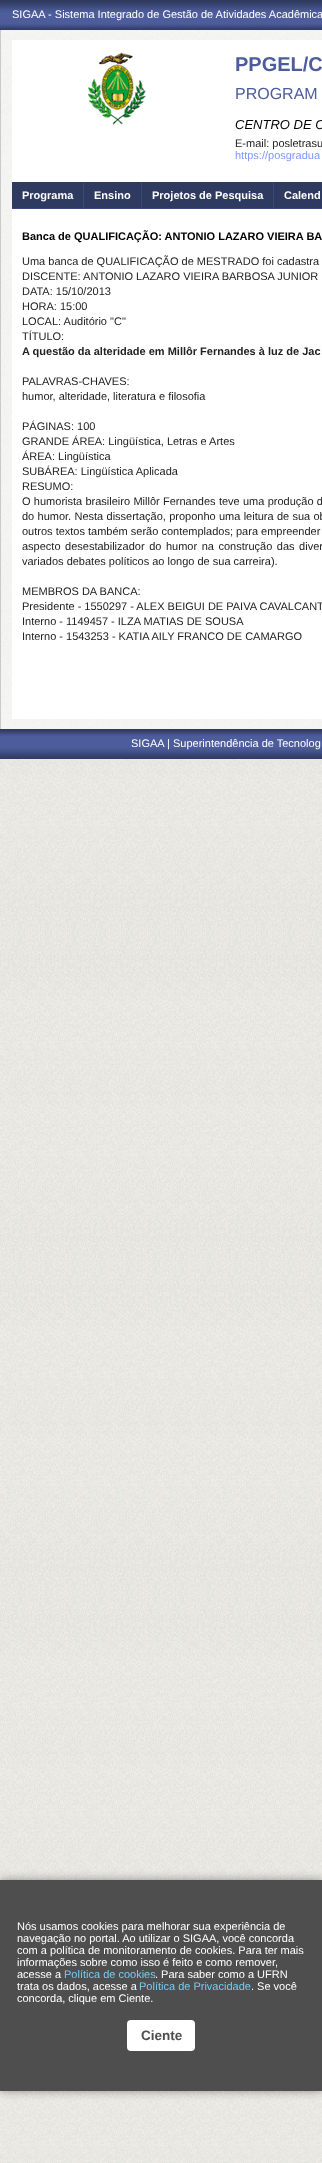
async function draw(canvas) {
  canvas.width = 322
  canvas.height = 2163
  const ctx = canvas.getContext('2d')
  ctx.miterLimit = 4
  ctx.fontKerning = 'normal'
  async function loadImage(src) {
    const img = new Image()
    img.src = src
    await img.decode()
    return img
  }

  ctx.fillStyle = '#fff'
  ctx.fillRect(0, 0, 322, 2163)
  ctx.drawImage(await loadImage('image0.png'), 0, 759, 322, 1404)
  ctx.drawImage(await loadImage('image1.png'), 0, 0, 322, 30)
  ctx.drawImage(await loadImage('image2.png'), 0, 729, 322, 30)
  ctx.font = '11px Liberation Sans'
  ctx.fillText('SIGAA - Sistema Integrado de Gestão de Atividades Acadêmica', 12, 18)
  ctx.drawImage(await loadImage('image3.png'), 1, 30, 321, 699)
  ctx.fillStyle = '#cacac7'
  ctx.fillRect(0, 30, 1, 699)
  ctx.fillStyle = '#fff'
  ctx.fillRect(12, 40, 310, 679)
  ctx.drawImage(await loadImage('image4.png'), 88, 52, 58, 73)
  ctx.font = 'bold 20px Liberation Sans'
  ctx.fillStyle = '#4d5d9c'
  ctx.fillText('PPGEL/C', 235, 71)
  ctx.font = '16px Liberation Sans'
  ctx.fillText('PROGRAM', 235, 99)
  ctx.font = 'italic 13px Liberation Sans'
  ctx.fillStyle = '#000'
  ctx.fillText('CENTRO DE C', 235, 129)
  ctx.font = '11px Liberation Sans'
  ctx.fillStyle = '#222'
  ctx.fillText('E-mail: posletrasu', 235, 147)
  ctx.fillStyle = '#7d97fe'
  ctx.fillText('https://posgradua', 235, 159)
  ctx.fillStyle = '#2f3a60'
  ctx.fillRect(12, 182, 310, 26)
  ctx.fillStyle = '#3b4878'
  ctx.fillRect(12, 208, 310, 1)
  ctx.font = 'bold 11px Liberation Sans'
  ctx.fillStyle = '#fff'
  ctx.fillText('Programa', 22, 199)
  ctx.fillStyle = '#3b4878'
  ctx.fillRect(83, 182, 1, 27)
  ctx.fillStyle = '#fff'
  ctx.fillText('Ensino', 94, 199)
  ctx.fillStyle = '#3b4878'
  ctx.fillRect(141, 182, 1, 27)
  ctx.fillStyle = '#fff'
  ctx.fillText('Projetos de Pesquisa', 152, 199)
  ctx.fillStyle = '#3b4878'
  ctx.fillRect(273, 182, 1, 27)
  ctx.fillStyle = '#fff'
  ctx.fillText('Calend', 284, 199)
  ctx.fillStyle = '#000'
  ctx.fillText('Banca de QUALIFICAÇÃO: ANTONIO LAZARO VIEIRA BA', 22, 240)
  ctx.font = '11px Liberation Sans'
  ctx.fillStyle = '#222'
  ctx.fillText('Uma banca de QUALIFICAÇÃO de MESTRADO foi cadastra', 22, 265)
  ctx.fillText('DISCENTE: ANTONIO LAZARO VIEIRA BARBOSA JUNIOR', 22, 280)
  ctx.fillText('DATA: 15/10/2013', 22, 295)
  ctx.fillText('HORA: 15:00', 22, 310)
  ctx.fillText('LOCAL: Auditório "C"', 22, 325)
  ctx.fillText('TÍTULO:', 22, 340)
  ctx.font = 'bold 11px Liberation Sans'
  ctx.fillText('A questão da alteridade em Millôr Fernandes à luz de Jac', 22, 355)
  ctx.font = '11px Liberation Sans'
  ctx.fillText('PALAVRAS-CHAVES:', 22, 385)
  ctx.fillText('humor, alteridade, literatura e filosofia', 22, 400)
  ctx.fillText('PÁGINAS: 100', 22, 430)
  ctx.fillText('GRANDE ÁREA: Lingüística, Letras e Artes', 22, 445)
  ctx.fillText('ÁREA: Lingüística', 22, 460)
  ctx.fillText('SUBÁREA: Lingüística Aplicada', 22, 475)
  ctx.fillText('RESUMO:', 22, 490)
  ctx.wordSpacing = '0.25px'
  ctx.fillText('O humorista brasileiro Millôr Fernandes teve uma produção d', 22, 505)
  ctx.fillText('do humor. Nesta dissertação, proponho uma leitura de sua ob', 22, 520)
  ctx.wordSpacing = '0px'
  ctx.fillText('outros textos também serão contemplados; para empreender', 22, 535)
  ctx.wordSpacing = '1.5px'
  ctx.fillText('aspecto desestabilizador do humor na construção das diver', 22, 550)
  ctx.wordSpacing = '0px'
  ctx.fillText('variados debates políticos ao longo de sua carreira).', 22, 565)
  ctx.fillText('MEMBROS DA BANCA:', 22, 595)
  ctx.fillText('Presidente - 1550297 - ALEX BEIGUI DE PAIVA CAVALCANT', 22, 610)
  ctx.fillText('Interno - 1149457 - ILZA MATIAS DE SOUSA', 22, 625)
  ctx.fillText('Interno - 1543253 - KATIA AILY FRANCO DE CAMARGO', 22, 640)
  ctx.fillStyle = '#fff'
  ctx.fillText('SIGAA | Superintendência de Tecnolog', 131, 747)
  ctx.fillStyle = '#00000066'
  ctx.filter = 'blur(5px)'
  ctx.beginPath()
  ctx.rect(0, 1880, 322, 211)
  ctx.fill()
  ctx.filter = 'none'
  ctx.fillStyle = '#4e4e4e'
  ctx.fillRect(0, 1880, 322, 211)
  ctx.fillStyle = '#fff'
  ctx.fillText('Nós usamos cookies para melhorar sua experiência de', 17, 1930)
  ctx.fillText('navegação no portal. Ao utilizar o SIGAA, você concorda', 17, 1942)
  ctx.fillText('com a política de monitoramento de cookies. Para ter mais', 17, 1954)
  ctx.fillText('informações sobre como isso é feito e como remover,', 17, 1966)
  ctx.fillText('acesse a', 17, 1978)
  ctx.fillStyle = '#79cbf2'
  ctx.fillText('Política de cookies', 64, 1978)
  ctx.fillStyle = '#fff'
  ctx.fillText('. Para saber como a UFRN', 155, 1978)
  ctx.fillText('trata os dados, acesse a', 17, 1990)
  ctx.fillStyle = '#79cbf2'
  ctx.fillText('Política de Privacidade', 139, 1990)
  ctx.fillStyle = '#fff'
  ctx.fillText('. Se você', 251, 1990)
  ctx.fillText('concorda, clique em Ciente.', 17, 2002)
  ctx.beginPath()
  ctx.roundRect(127, 2020, 68, 31, 4)
  ctx.fill()
  ctx.font = 'bold 13.5px Liberation Sans'
  ctx.fillStyle = '#4e4e4e'
  ctx.fillText('Ciente', 141, 2040)
}

draw(document.querySelector('canvas'))
